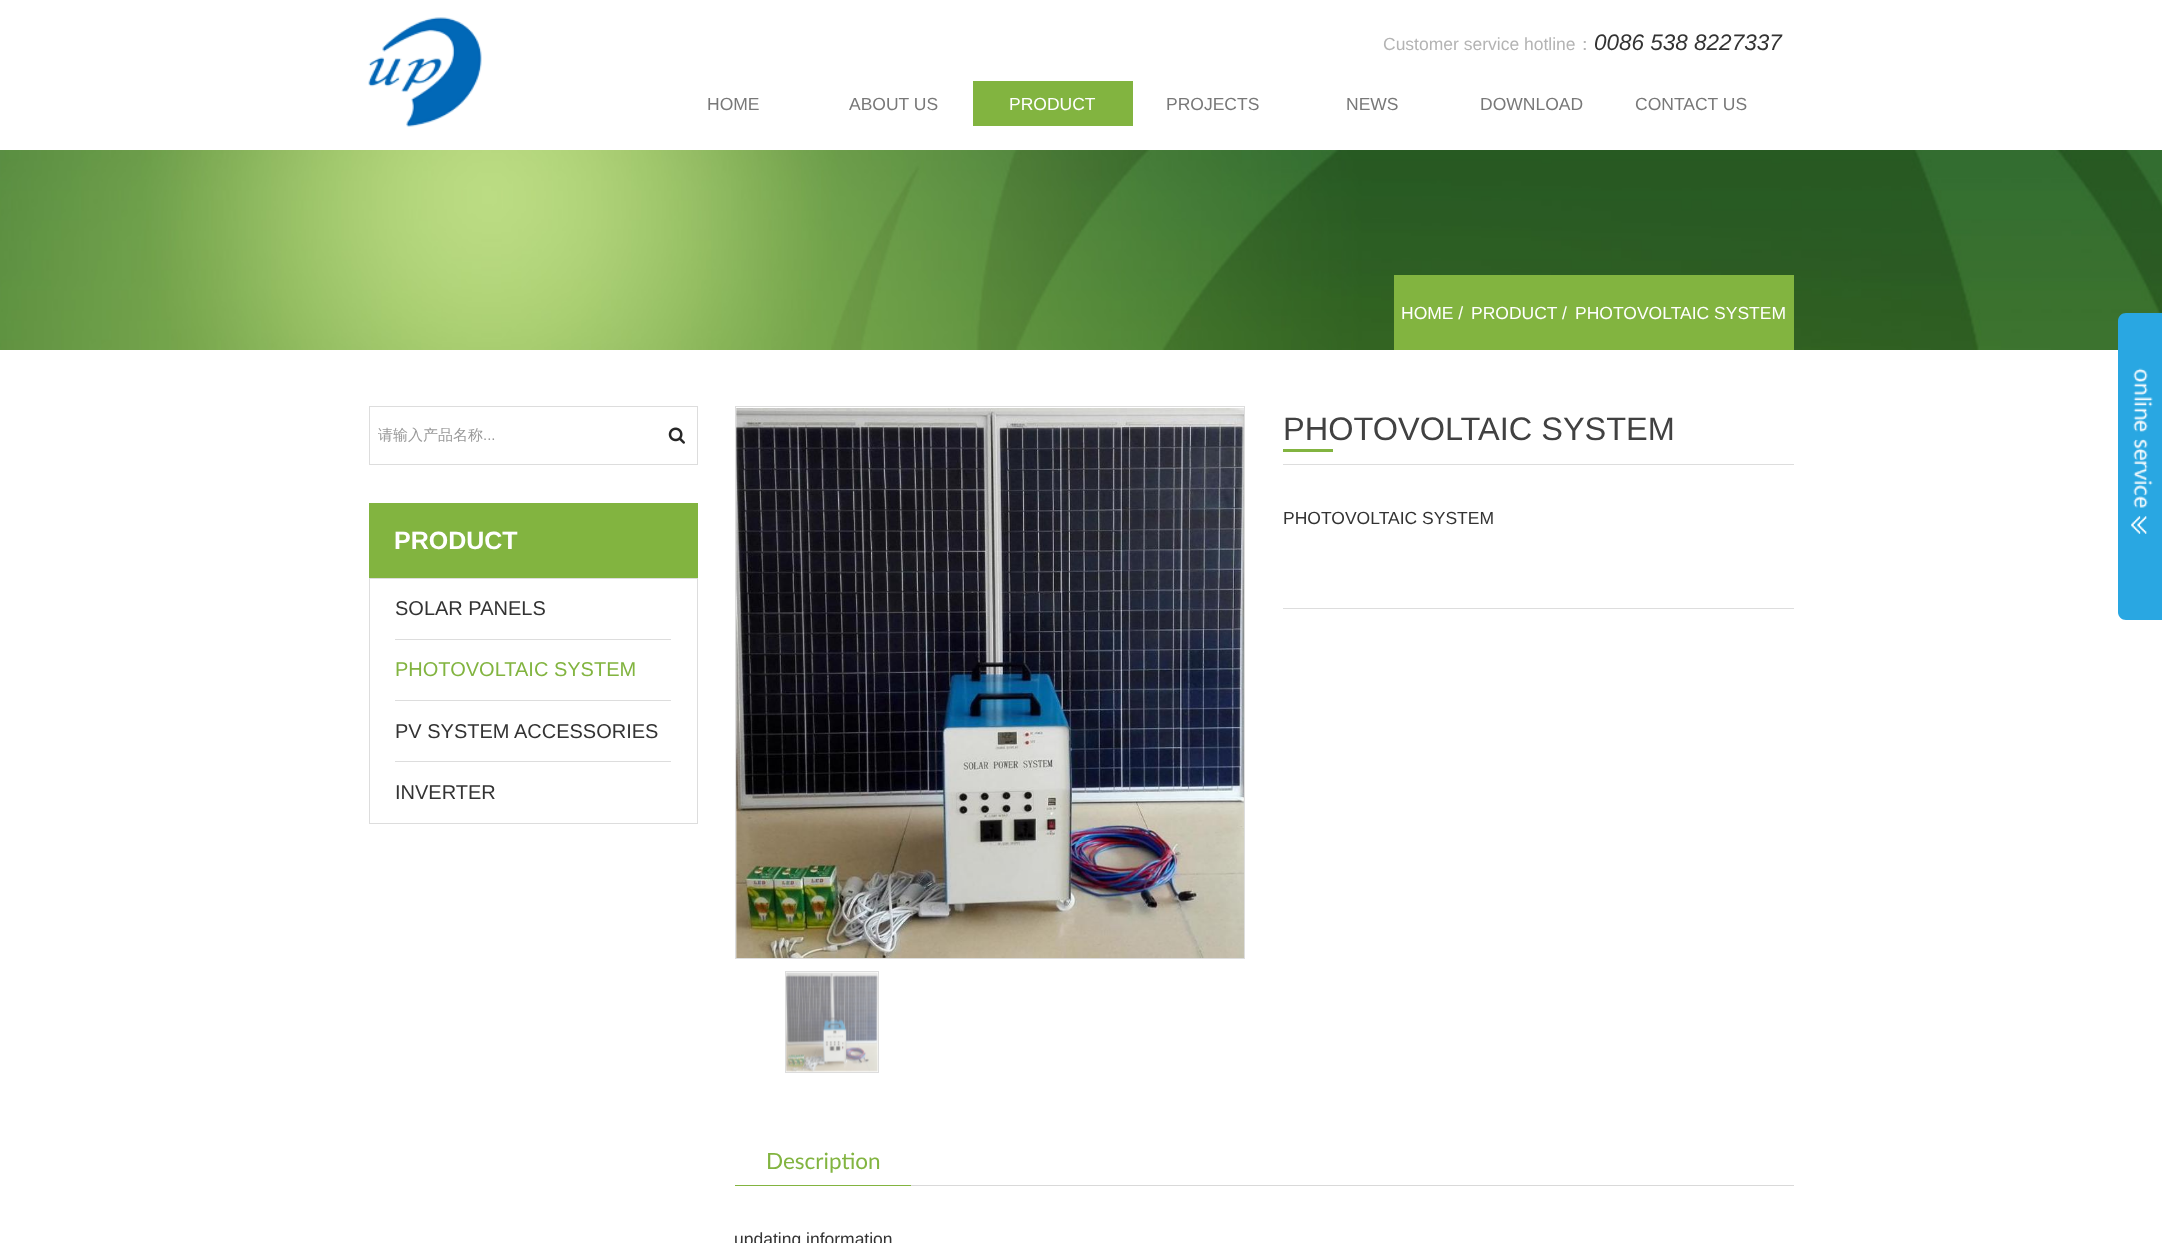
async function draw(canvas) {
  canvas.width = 2162
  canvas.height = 1243
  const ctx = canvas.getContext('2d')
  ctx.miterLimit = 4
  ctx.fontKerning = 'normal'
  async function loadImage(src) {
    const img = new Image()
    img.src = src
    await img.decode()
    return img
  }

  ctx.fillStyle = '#fff'
  ctx.fillRect(0, 0, 2162, 1243)
  ctx.drawImage(await loadImage('image0.png'), 368, 17, 114, 110)
  ctx.font = '17.5px Liberation Sans'
  ctx.fillStyle = '#b4b4b4'
  ctx.fillText('Customer service hotline', 1383, 50)
  ctx.font = '500 17.5px WenQuanYi Zen Hei'
  ctx.fillText('：', 1576, 50)
  ctx.font = 'italic 22.5px Liberation Sans'
  ctx.fillStyle = '#333'
  ctx.fillText('0086 538 8227337', 1594, 50)
  ctx.font = '17.5px Liberation Sans'
  ctx.fillStyle = '#787878'
  ctx.fillText('HOME', 707, 110)
  ctx.fillText('ABOUT US', 849, 110)
  ctx.fillStyle = '#82b440'
  ctx.fillRect(973, 81, 160, 45)
  ctx.fillStyle = '#fff'
  ctx.fillText('PRODUCT', 1009, 110)
  ctx.fillStyle = '#787878'
  ctx.fillText('PROJECTS', 1166, 110)
  ctx.fillText('NEWS', 1346, 110)
  ctx.fillText('DOWNLOAD', 1480, 110)
  ctx.fillText('CONTACT US', 1635, 110)
  ctx.drawImage(await loadImage('image1.png'), 0, 150, 2162, 200)
  ctx.fillStyle = '#82b440'
  ctx.fillRect(1394, 275, 400, 75)
  ctx.fillStyle = '#fff'
  ctx.fillText('HOME /', 1401, 319)
  ctx.fillText('PRODUCT /', 1471, 319)
  ctx.fillText('PHOTOVOLTAIC SYSTEM', 1575, 319)
  ctx.fillStyle = '#29a7e2'
  ctx.beginPath()
  ctx.moveTo(2126, 313)
  ctx.lineTo(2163, 313)
  ctx.lineTo(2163, 620)
  ctx.lineTo(2126, 620)
  ctx.bezierCurveTo(2121.5, 620, 2118, 616.5, 2118, 612)
  ctx.lineTo(2118, 321)
  ctx.bezierCurveTo(2118, 316.5, 2121.5, 313, 2126, 313)
  ctx.closePath()
  ctx.fill()
  ctx.drawImage(await loadImage('image2.png'), 2131, 368, 22, 166)
  ctx.strokeStyle = '#ddd'
  ctx.strokeRect(369.5, 406.5, 328, 58)
  ctx.font = '500 15px WenQuanYi Zen Hei'
  ctx.fillStyle = '#999'
  ctx.fillText('请输入产品名称', 378, 440)
  ctx.font = '15px Liberation Sans'
  ctx.fillText('...', 483, 440)
  ctx.drawImage(await loadImage('image3.png'), 668, 427, 17, 17)
  ctx.fillStyle = '#82b440'
  ctx.fillRect(369, 503, 329, 75)
  ctx.font = 'bold 25px Liberation Sans'
  ctx.fillStyle = '#fff'
  ctx.fillText('PRODUCT', 394, 549)
  ctx.strokeRect(369.5, 578.5, 328, 245)
  ctx.font = '20px Liberation Sans'
  ctx.fillStyle = '#333'
  ctx.fillText('SOLAR PANELS', 395, 615)
  ctx.fillStyle = '#ddd'
  ctx.fillRect(395, 639, 276, 1)
  ctx.fillStyle = '#82b440'
  ctx.fillText('PHOTOVOLTAIC SYSTEM', 395, 676)
  ctx.fillStyle = '#ddd'
  ctx.fillRect(395, 700, 276, 1)
  ctx.fillStyle = '#333'
  ctx.fillText('PV SYSTEM ACCESSORIES', 395, 738)
  ctx.fillStyle = '#ddd'
  ctx.fillRect(395, 761, 276, 1)
  ctx.fillStyle = '#333'
  ctx.fillText('INVERTER', 395, 799)
  ctx.strokeRect(735.5, 406.5, 509, 552)
  ctx.drawImage(await loadImage('image4.png'), 736, 408, 508, 550)
  ctx.strokeRect(785.5, 971.5, 93, 101)
  ctx.drawImage(await loadImage('image5.png'), 786, 972, 92, 100)
  ctx.font = '32.5px Liberation Sans'
  ctx.fillStyle = '#414141'
  ctx.fillText('PHOTOVOLTAIC SYSTEM', 1283, 440)
  ctx.fillStyle = '#82b440'
  ctx.fillRect(1283, 449, 50, 3)
  ctx.fillStyle = '#ddd'
  ctx.fillRect(1283, 464, 511, 1)
  ctx.fillRect(1283, 608, 511, 1)
  ctx.font = '17.5px Liberation Sans'
  ctx.fillStyle = '#333'
  ctx.fillText('PHOTOVOLTAIC SYSTEM', 1283, 524)
  ctx.fillStyle = '#d9d9d9'
  ctx.fillRect(911, 1185, 883, 1)
  ctx.font = '22.5px Lato'
  ctx.fillStyle = '#82b440'
  ctx.fillText('Description', 766, 1169)
  ctx.fillRect(735, 1185, 176, 1)
  ctx.font = '17.5px Liberation Sans'
  ctx.fillStyle = '#333'
  ctx.fillText('updating information', 734, 1245)
}

draw(document.querySelector('canvas'))
